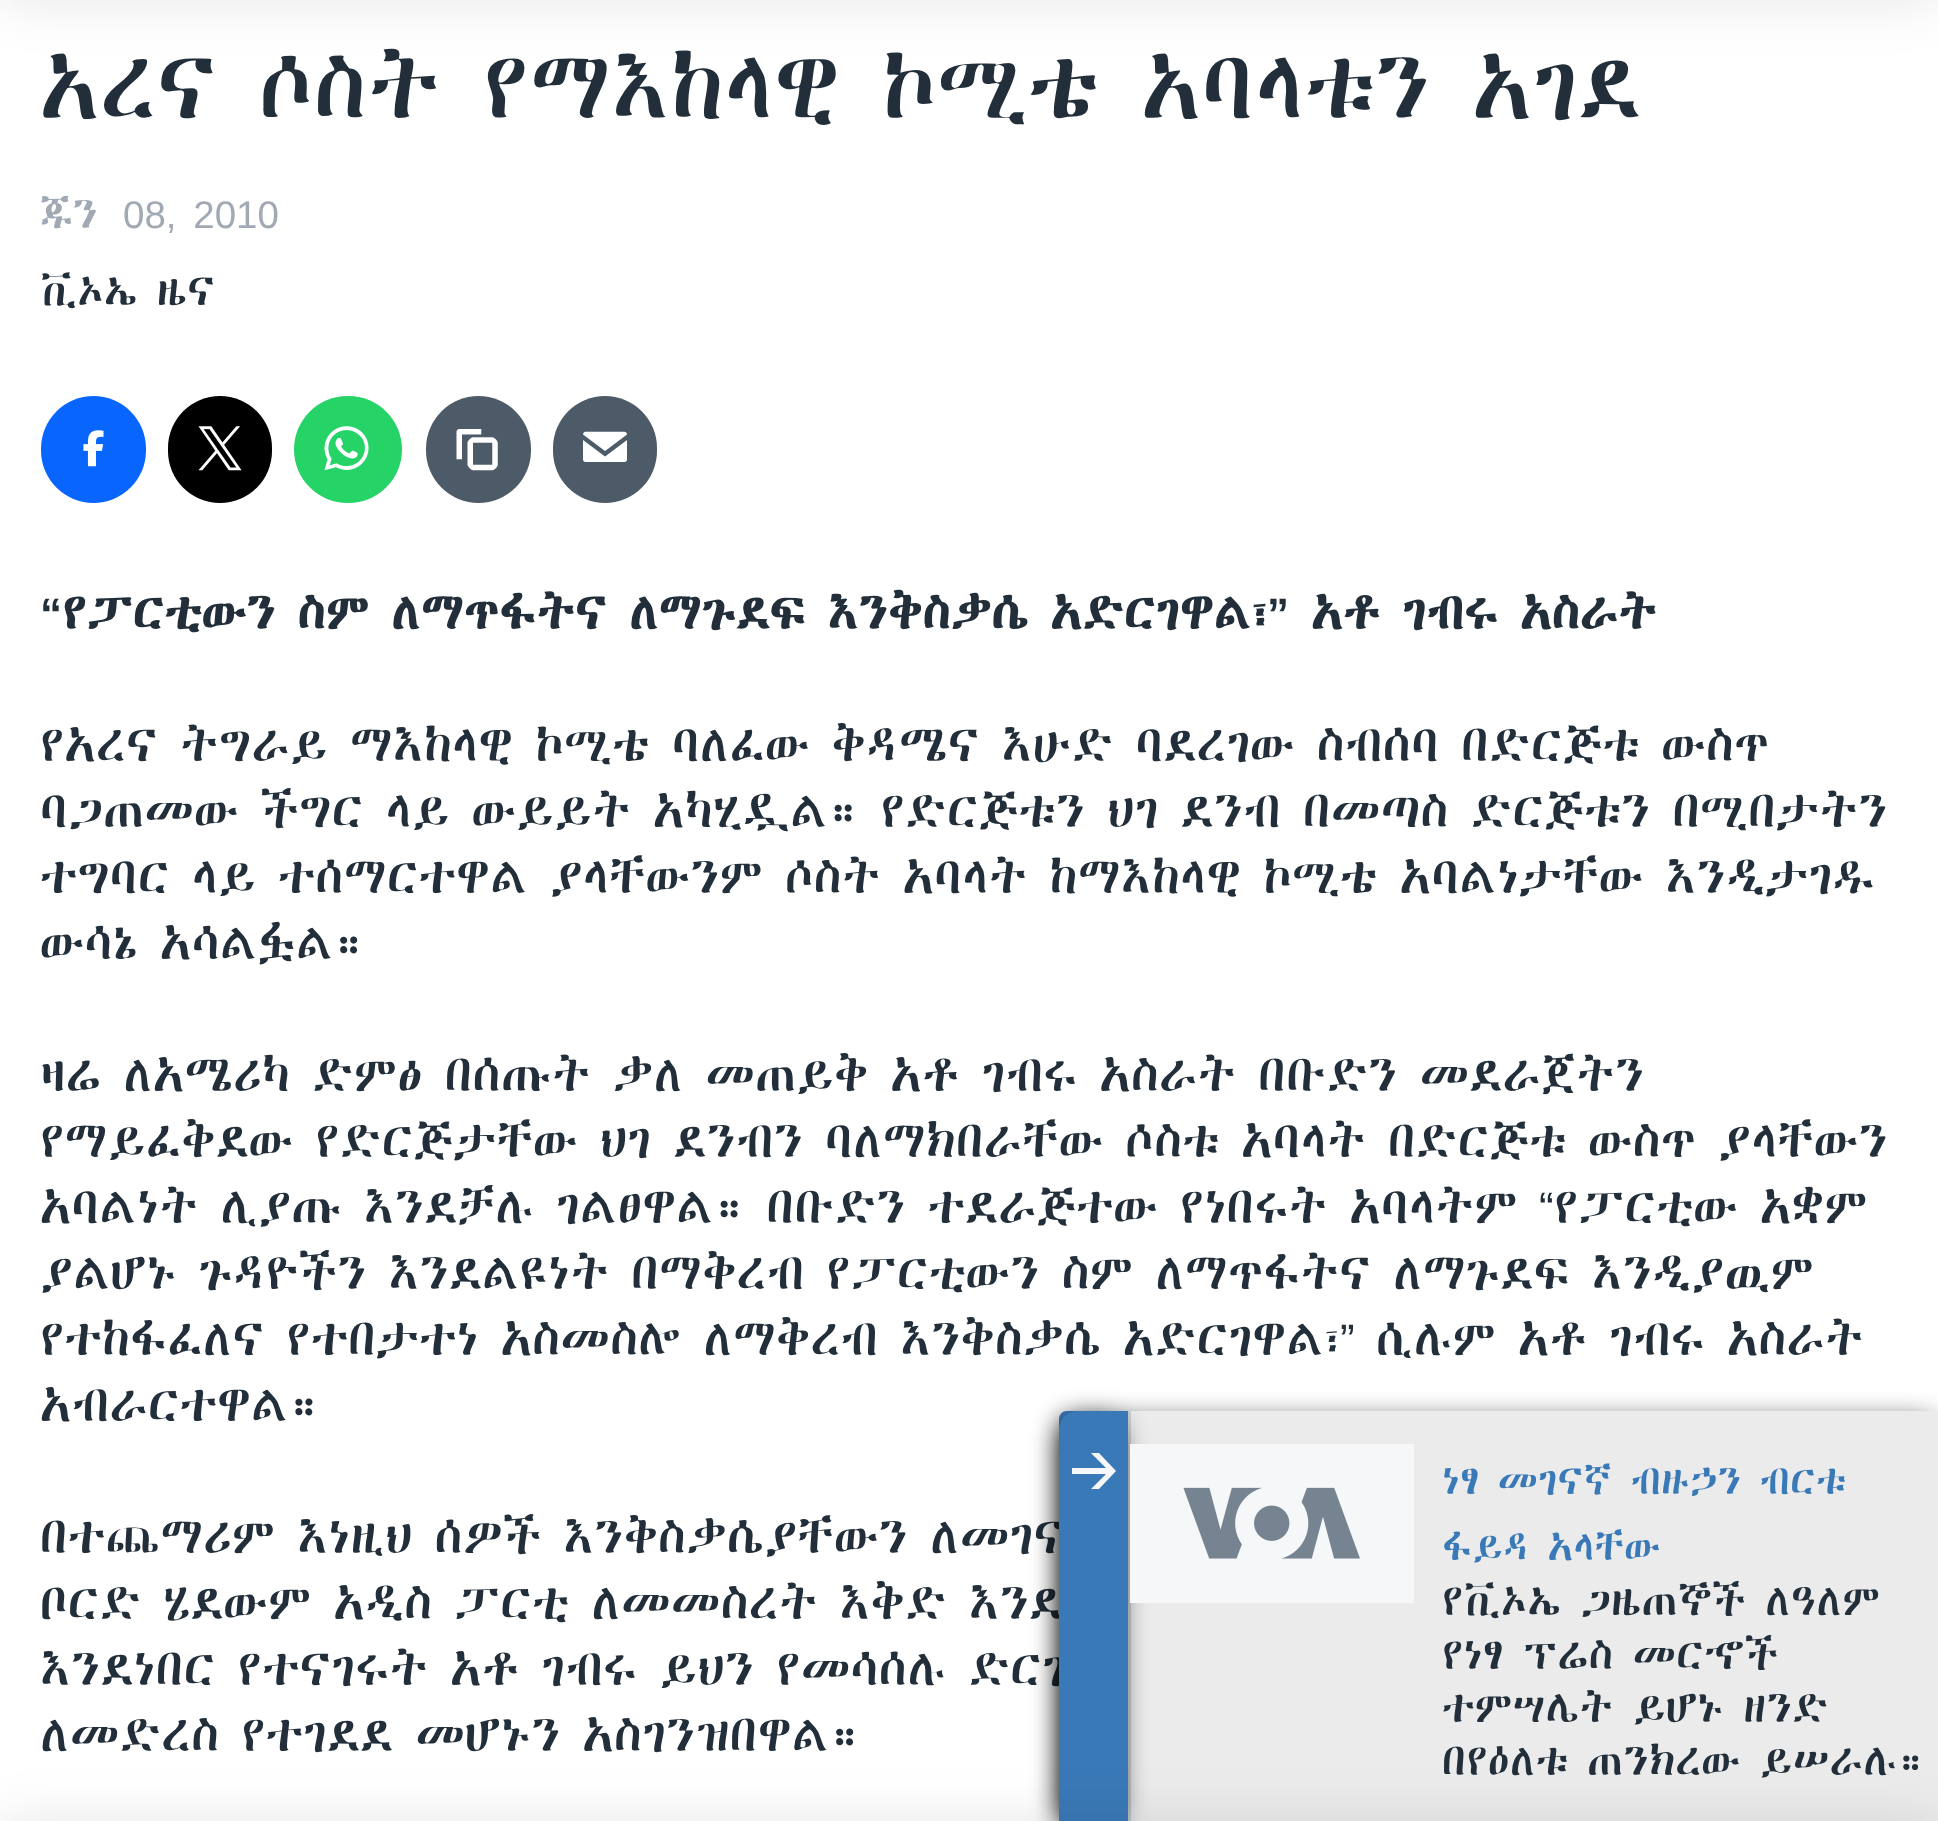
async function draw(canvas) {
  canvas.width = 1938
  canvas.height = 1821
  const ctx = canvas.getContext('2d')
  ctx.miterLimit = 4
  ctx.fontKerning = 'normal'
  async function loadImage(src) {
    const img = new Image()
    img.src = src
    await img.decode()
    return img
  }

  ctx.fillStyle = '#fff'
  ctx.fillRect(0, 0, 1938, 1821)
  ctx.fillStyle = '#0000001a'
  ctx.filter = 'blur(27.5px)'
  ctx.beginPath()
  ctx.rect(0, -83, 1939, 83)
  ctx.fill()
  ctx.filter = 'none'
  ctx.font = '44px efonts'
  ctx.fillStyle = '#222f3a'
  ctx.fillText('በተጨማሪም እነዚህ ሰዎች እንቅስቃሴያቸውን ለመገና', 40, 1553)
  ctx.fillText('ቦርድ ሄደውም አዲስ ፓርቲ ለመመስረት እቅድ እንደ', 40, 1619)
  ctx.fillText('እንደነበር የተናገሩት አቶ ገብሩ ይህን የመሳሰሉ ድርጊ', 40, 1685)
  ctx.fillStyle = '#000000d9'
  ctx.filter = 'blur(14px)'
  ctx.beginPath()
  ctx.roundRect(1064, 1422, 869, 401, 3)
  ctx.fill()
  ctx.filter = 'none'
  ctx.fillStyle = '#3a79b7'
  ctx.beginPath()
  ctx.moveTo(1067, 1411)
  ctx.lineTo(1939, 1411)
  ctx.lineTo(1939, 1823)
  ctx.lineTo(1059, 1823)
  ctx.lineTo(1059, 1419)
  ctx.bezierCurveTo(1059, 1414.5, 1062.5, 1411, 1067, 1411)
  ctx.closePath()
  ctx.fill()
  ctx.fillStyle = '#ebebeb'
  ctx.fillRect(1131, 1411, 807, 410)
  ctx.fillStyle = '#cbd1d6'
  ctx.fillRect(1128, 1411, 3, 410)
  ctx.fillStyle = '#0000001a'
  ctx.filter = 'blur(27.5px)'
  ctx.beginPath()
  ctx.rect(0, 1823, 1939, 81)
  ctx.fill()
  ctx.filter = 'none'
  ctx.font = '83.6px efonts'
  ctx.fillStyle = '#222f3a'
  ctx.fillText('አረና ሶስት የማእከላዊ ኮሚቴ አባላቱን አገደ', 40, 118)
  ctx.font = '38.5px efonts'
  ctx.fillStyle = '#a1aab4'
  ctx.fillText('ጁን', 40, 228)
  ctx.wordSpacing = '6px'
  ctx.font = '38.5px Liberation Sans'
  ctx.fillText('08, 2010', 123, 228)
  ctx.wordSpacing = '0px'
  ctx.font = '38.5px efonts'
  ctx.fillStyle = '#222f3a'
  ctx.fillText('ቪኦኤ ዜና', 40, 305)
  ctx.fillStyle = '#0866ff'
  ctx.beginPath()
  ctx.roundRect(41, 396, 105, 107, 52.5)
  ctx.fill()
  ctx.drawImage(await loadImage('image0.png'), 83, 430, 21, 37)
  ctx.fillStyle = '#000'
  ctx.beginPath()
  ctx.roundRect(168, 396, 104, 107, 52)
  ctx.fill()
  ctx.drawImage(await loadImage('image1.png'), 198, 426, 44, 45)
  ctx.fillStyle = '#25d366'
  ctx.beginPath()
  ctx.roundRect(294, 396, 108, 107, 53.5)
  ctx.fill()
  ctx.drawImage(await loadImage('image2.png'), 324, 426, 45, 45)
  ctx.fillStyle = '#4d5a67'
  ctx.beginPath()
  ctx.roundRect(426, 396, 105, 107, 52.5)
  ctx.fill()
  ctx.drawImage(await loadImage('image3.png'), 456, 429, 42, 42)
  ctx.beginPath()
  ctx.roundRect(553, 396, 104, 107, 52)
  ctx.fill()
  ctx.drawImage(await loadImage('image4.png'), 583, 431, 44, 31)
  ctx.font = 'bold 44px Liberation Sans'
  ctx.fillStyle = '#222f3a'
  ctx.fillText('“', 40, 629)
  ctx.font = 'bold 44px efonts'
  ctx.fillText('የፓርቲውን ስም ለማጥፋትና ለማጉደፍ እንቅስቃሴ አድርገዋል፣', 62, 629)
  ctx.font = 'bold 44px Liberation Sans'
  ctx.fillText('”', 1267, 629)
  ctx.font = 'bold 44px efonts'
  ctx.fillText('አቶ ገብሩ አስራት', 1311, 629)
  ctx.font = '44px efonts'
  ctx.fillText('የአረና ትግራይ ማእከላዊ ኮሚቴ ባለፈው ቅዳሜና እሁድ ባደረገው ስብሰባ በድርጅቱ ውስጥ', 40, 761)
  ctx.fillText('ባጋጠመው ችግር ላይ ውይይት አካሂዷል። የድርጅቱን ህገ ደንብ በመጣስ ድርጅቱን በሚበታትን', 40, 827)
  ctx.fillText('ተግባር ላይ ተሰማርተዋል ያላቸውንም ሶስት አባላት ከማእከላዊ ኮሚቴ አባልነታቸው እንዲታገዱ', 40, 893)
  ctx.fillText('ውሳኔ አሳልፏል።', 40, 959)
  ctx.fillText('ዛሬ ለአሜሪካ ድምፅ በሰጡት ቃለ መጠይቅ አቶ ገብሩ አስራት በቡድን መደራጀትን', 40, 1091)
  ctx.fillText('የማይፈቅደው የድርጅታቸው ህገ ደንብን ባለማክበራቸው ሶስቱ አባላት በድርጅቱ ውስጥ ያላቸውን', 40, 1157)
  ctx.fillText('አባልነት ሊያጡ እንደቻሉ ገልፀዋል። በቡድን ተደራጅተው የነበሩት አባላትም', 40, 1223)
  ctx.font = '44px Liberation Sans'
  ctx.fillText('“', 1539, 1223)
  ctx.font = '44px efonts'
  ctx.fillText('የፓርቲው አቋም', 1554, 1223)
  ctx.fillText('ያልሆኑ ጉዳዮችን እንደልዩነት በማቅረብ የፓርቲውን ስም ለማጥፋትና ለማጉደፍ እንዲያዉም', 40, 1289)
  ctx.fillText('የተከፋፈለና የተበታተነ አስመስሎ ለማቅረብ እንቅስቃሴ አድርገዋል፣', 40, 1355)
  ctx.font = '44px Liberation Sans'
  ctx.fillText('”', 1340, 1355)
  ctx.font = '44px efonts'
  ctx.fillText('ሲሉም አቶ ገብሩ አስራት', 1376, 1355)
  ctx.fillText('አብራርተዋል።', 40, 1421)
  ctx.fillText('ለመድረስ የተገደደ መሆኑን አስገንዝበዋል።', 40, 1751)
  ctx.save()
  ctx.beginPath()
  ctx.moveTo(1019, 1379)
  ctx.lineTo(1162, 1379)
  ctx.lineTo(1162, 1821)
  ctx.lineTo(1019, 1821)
  ctx.closePath()
  ctx.moveTo(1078, 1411)
  ctx.lineTo(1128, 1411)
  ctx.lineTo(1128, 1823)
  ctx.lineTo(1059, 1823)
  ctx.lineTo(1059, 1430)
  ctx.bezierCurveTo(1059, 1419.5, 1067.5, 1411, 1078, 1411)
  ctx.closePath()
  ctx.clip('evenodd')
  ctx.fillStyle = '#000000d9'
  ctx.filter = 'blur(14px)'
  ctx.beginPath()
  ctx.roundRect(1062, 1422, 57, 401, 14)
  ctx.fill()
  ctx.filter = 'none'
  ctx.restore()
  ctx.fillStyle = '#f6f7f8'
  ctx.beginPath()
  ctx.moveTo(1116, 1471)
  ctx.lineTo(1099, 1453)
  ctx.lineTo(1091, 1453)
  ctx.lineTo(1106, 1468)
  ctx.lineTo(1072, 1468)
  ctx.lineTo(1072, 1474)
  ctx.lineTo(1106, 1474)
  ctx.lineTo(1091, 1489)
  ctx.lineTo(1099, 1489)
  ctx.closePath()
  ctx.fill()
  ctx.fillRect(1130, 1444, 284, 159)
  ctx.drawImage(await loadImage('image5.png'), 1183, 1487, 177, 72)
  ctx.font = '35.75px efonts'
  ctx.fillStyle = '#3a79b7'
  ctx.fillText('ነፃ መገናኛ ብዙኃን ብርቱ', 1442, 1494)
  ctx.fillText('ፋይዳ አላቸው', 1442, 1560)
  ctx.font = '38.5px efonts'
  ctx.fillStyle = '#222f3a'
  ctx.fillText('የቪኦኤ ጋዜጠኞች ለዓለም', 1442, 1615)
  ctx.fillText('የነፃ ፕሬስ መርኆች', 1442, 1669)
  ctx.fillText('ተምሣሌት ይሆኑ ዘንድ', 1442, 1722)
  ctx.fillText('በየዕለቱ ጠንክረው ይሠራሉ።', 1442, 1775)
}

draw(document.querySelector('canvas'))
